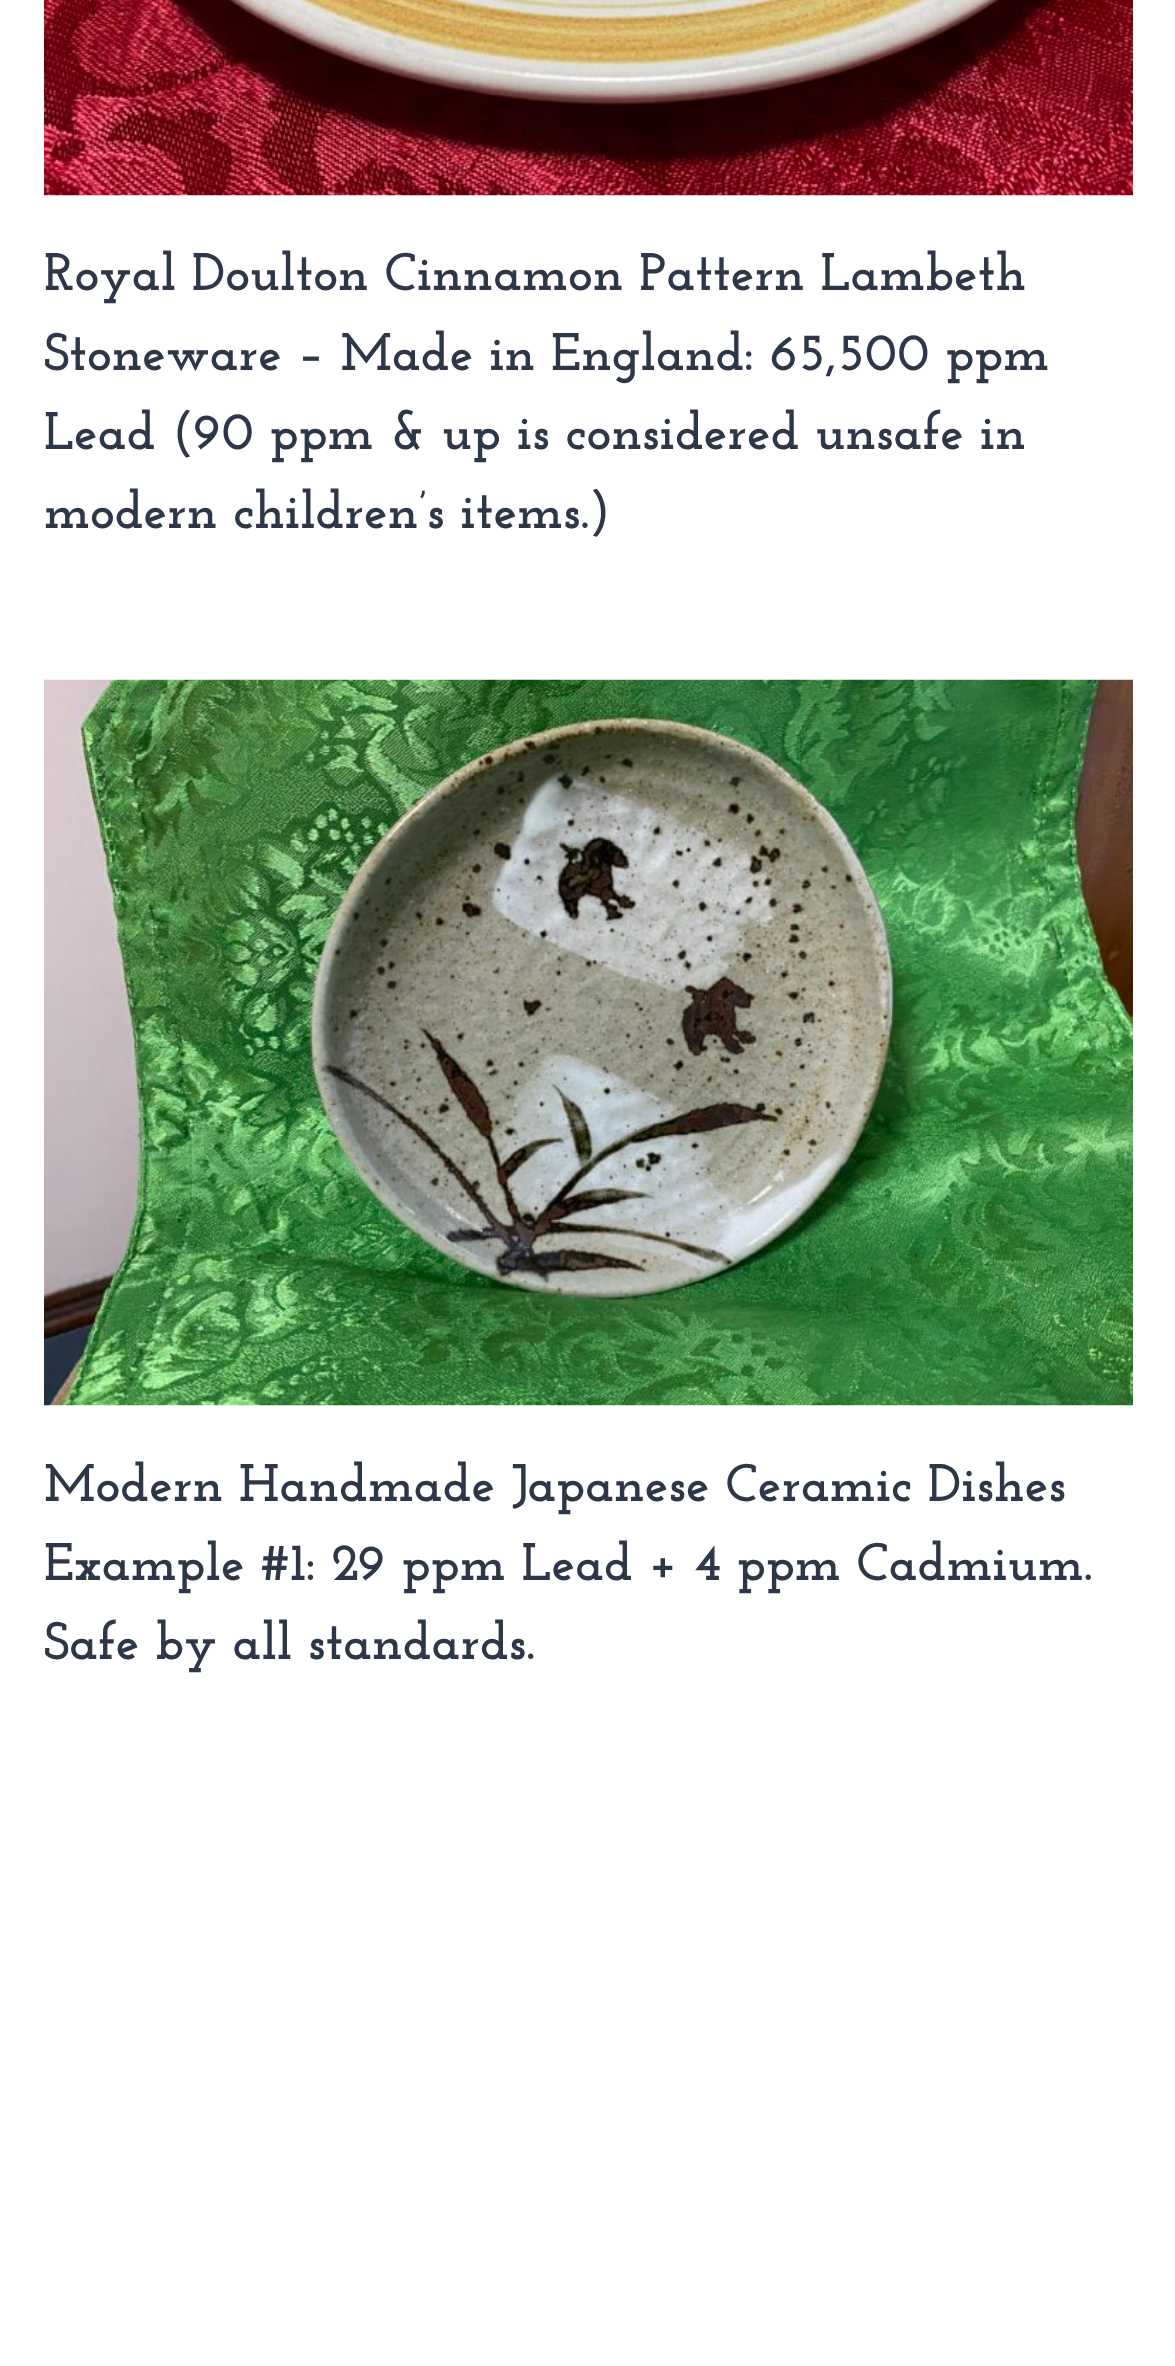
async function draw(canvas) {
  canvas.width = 1175
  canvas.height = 2366
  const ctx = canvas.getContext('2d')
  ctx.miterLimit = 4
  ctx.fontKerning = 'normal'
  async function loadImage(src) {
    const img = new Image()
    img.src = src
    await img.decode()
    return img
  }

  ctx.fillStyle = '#fff'
  ctx.fillRect(0, 0, 1175, 2366)
  ctx.drawImage(await loadImage('image0.png'), 44, 0, 1089, 196)
  ctx.font = '100 52.75px Josefin Slab'
  ctx.fillStyle = '#2d3748'
  ctx.fillText('Royal Doulton Cinnamon Pattern Lambeth', 44, 290)
  ctx.fillText('Stoneware – Made in England: 65,500 ppm', 44, 370)
  ctx.fillText('Lead (90 ppm & up is considered unsafe in', 44, 449)
  ctx.fillText('modern children’s items.)', 44, 528)
  ctx.drawImage(await loadImage('image1.png'), 44, 679, 1089, 727)
  ctx.fillText('Modern Handmade Japanese Ceramic Dishes', 44, 1501)
  ctx.fillText('Example #1: 29 ppm Lead + 4 ppm Cadmium.', 44, 1580)
  ctx.fillText('Safe by all standards.', 44, 1659)
}

draw(document.querySelector('canvas'))
